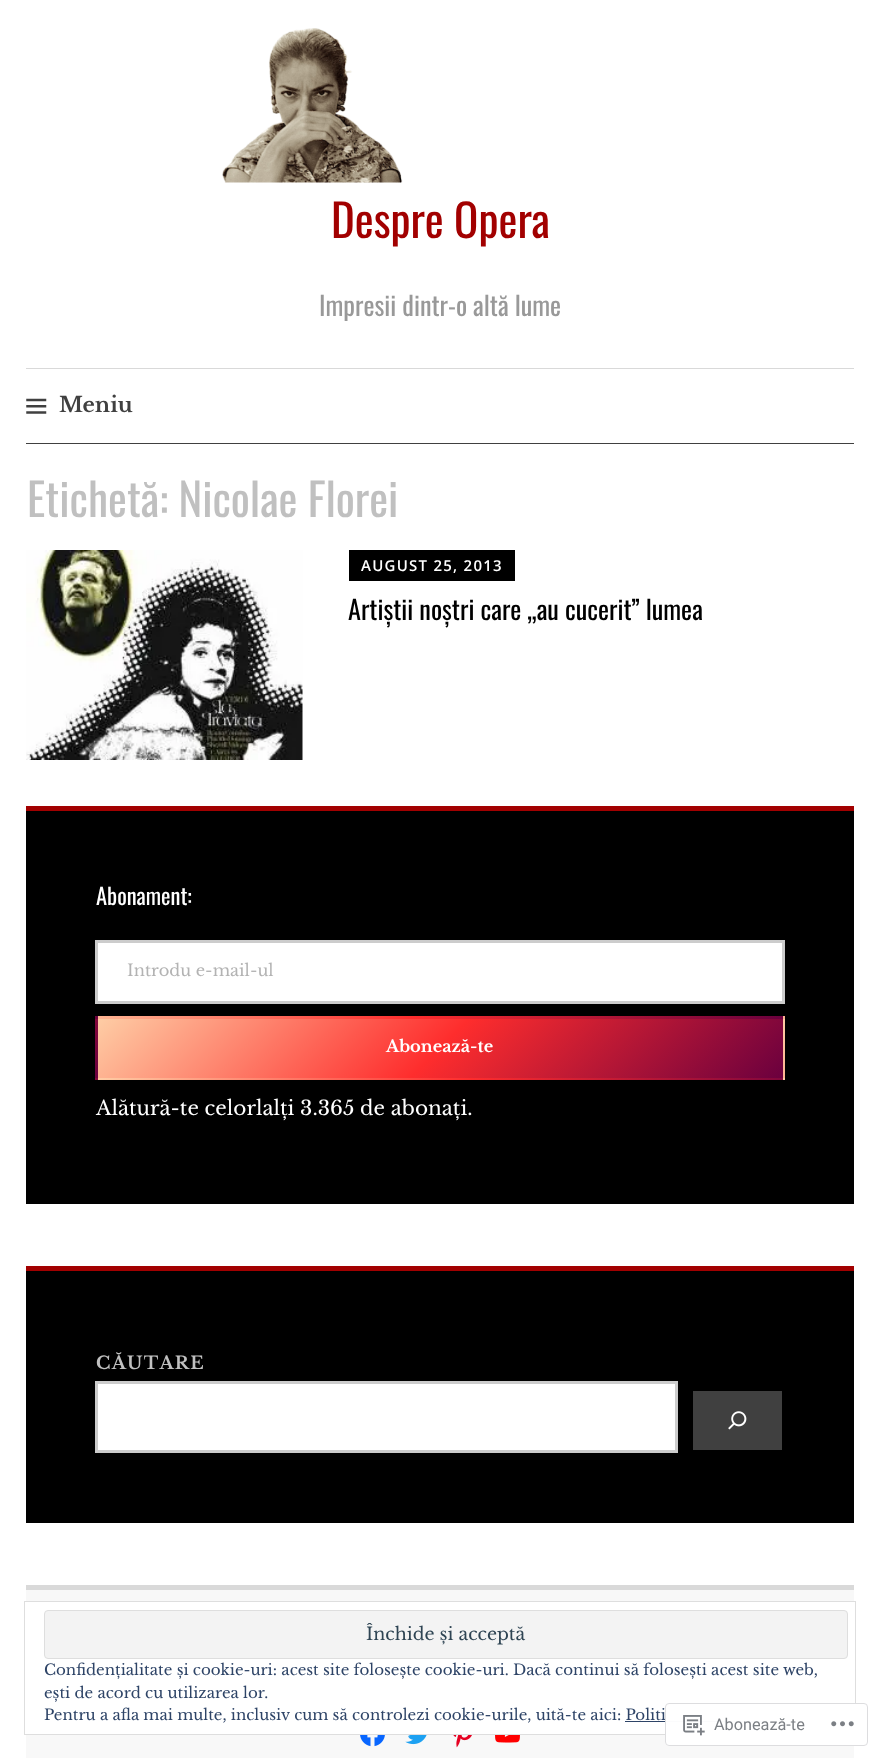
async function draw(canvas) {
  canvas.width = 879
  canvas.height = 1758
  const ctx = canvas.getContext('2d')
  ctx.miterLimit = 4
  ctx.fontKerning = 'normal'
  async function loadImage(src) {
    const img = new Image()
    img.src = src
    await img.decode()
    return img
  }
  let gradient

  ctx.fillStyle = '#fff'
  ctx.fillRect(0, 0, 879, 1758)
  ctx.drawImage(await loadImage('image0.png'), 222, 28, 181, 155)
  ctx.font = '45px Oswald'
  ctx.fillStyle = '#a20000'
  ctx.fillText('Despre Opera', 331, 238)
  ctx.font = '26.25px Oswald'
  ctx.fillStyle = '#999'
  ctx.fillText('Impresii dintr-o altă lume', 319, 316)
  ctx.fillStyle = '#d9d9d9'
  ctx.fillRect(26, 368, 828, 1)
  ctx.fillStyle = '#404040'
  ctx.fillRect(26, 443, 828, 1)
  ctx.drawImage(await loadImage('image1.png'), 26, 398, 21, 16)
  ctx.font = 'bold 21px Libre Baskerville'
  ctx.fillText('Meniu', 59, 412)
  ctx.font = '45px Oswald'
  ctx.fillStyle = '#c0c0c0'
  ctx.fillText('Etichetă: Nicolae Florei', 27, 517)
  ctx.drawImage(await loadImage('image2.png'), 26, 550, 277, 210)
  ctx.fillStyle = '#000'
  ctx.fillRect(349, 550, 166, 31)
  ctx.letterSpacing = '1.25px'
  ctx.font = '600 15px Open Sans'
  ctx.fillStyle = '#fff'
  ctx.fillText('AUGUST 25, 2013', 361, 571)
  ctx.letterSpacing = '0px'
  ctx.font = '26.25px Oswald'
  ctx.fillStyle = '#000'
  ctx.fillText('Artiștii noștri care „au cucerit” lumea', 348, 620)
  ctx.fillRect(26, 811, 828, 393)
  ctx.fillStyle = '#a20000'
  ctx.fillRect(26, 806, 828, 5)
  ctx.font = '22.5px Oswald'
  ctx.fillStyle = '#fff'
  ctx.fillText('Abonament:', 96, 905)
  ctx.beginPath()
  ctx.rect(96.5, 941.5, 687, 61)
  ctx.fill()
  ctx.strokeStyle = '#ccc'
  ctx.lineWidth = 3
  ctx.stroke()
  ctx.font = '16.25px Libre Baskerville'
  ctx.fillStyle = '#b3b3b3'
  ctx.fillText('Introdu e-mail-ul', 127, 976)
  gradient = ctx.createLinearGradient(-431, 803, -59, 1175)
  gradient.addColorStop(0, '#fecda5')
  gradient.addColorStop(0.5, '#fe2d2d')
  gradient.addColorStop(1, '#6b003e')
  ctx.fillStyle = gradient
  ctx.fillRect(95, 1016, 3, 3)
  gradient = ctx.createLinearGradient(254, 803, 626, 1175)
  gradient.addColorStop(0, '#fecda5')
  gradient.addColorStop(0.5, '#fe2d2d')
  gradient.addColorStop(1, '#6b003e')
  ctx.fillStyle = gradient
  ctx.fillRect(98, 1016, 685, 3)
  gradient = ctx.createLinearGradient(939, 803, 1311, 1175)
  gradient.addColorStop(0, '#fecda5')
  gradient.addColorStop(0.5, '#fe2d2d')
  gradient.addColorStop(1, '#6b003e')
  ctx.fillStyle = gradient
  ctx.fillRect(783, 1016, 2, 3)
  gradient = ctx.createLinearGradient(-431, 862, -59, 1234)
  gradient.addColorStop(0, '#fecda5')
  gradient.addColorStop(0.5, '#fe2d2d')
  gradient.addColorStop(1, '#6b003e')
  ctx.fillStyle = gradient
  ctx.fillRect(95, 1019, 3, 59)
  gradient = ctx.createLinearGradient(254, 862, 626, 1234)
  gradient.addColorStop(0, '#fecda5')
  gradient.addColorStop(0.5, '#fe2d2d')
  gradient.addColorStop(1, '#6b003e')
  ctx.fillStyle = gradient
  ctx.fillRect(98, 1019, 685, 59)
  gradient = ctx.createLinearGradient(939, 862, 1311, 1234)
  gradient.addColorStop(0, '#fecda5')
  gradient.addColorStop(0.5, '#fe2d2d')
  gradient.addColorStop(1, '#6b003e')
  ctx.fillStyle = gradient
  ctx.fillRect(783, 1019, 2, 59)
  gradient = ctx.createLinearGradient(-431, 921, -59, 1293)
  gradient.addColorStop(0, '#fecda5')
  gradient.addColorStop(0.5, '#fe2d2d')
  gradient.addColorStop(1, '#6b003e')
  ctx.fillStyle = gradient
  ctx.fillRect(95, 1078, 3, 2)
  gradient = ctx.createLinearGradient(254, 921, 626, 1293)
  gradient.addColorStop(0, '#fecda5')
  gradient.addColorStop(0.5, '#fe2d2d')
  gradient.addColorStop(1, '#6b003e')
  ctx.fillStyle = gradient
  ctx.fillRect(98, 1078, 685, 2)
  gradient = ctx.createLinearGradient(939, 921, 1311, 1293)
  gradient.addColorStop(0, '#fecda5')
  gradient.addColorStop(0.5, '#fe2d2d')
  gradient.addColorStop(1, '#6b003e')
  ctx.fillStyle = gradient
  ctx.fillRect(783, 1078, 2, 2)
  ctx.font = 'bold 16.25px Libre Baskerville'
  ctx.fillStyle = '#fff'
  ctx.fillText('Abonează-te', 386, 1052)
  ctx.font = '20px Libre Baskerville'
  ctx.fillText('Alătură-te celorlalți 3.365 de abonați.', 96, 1115)
  ctx.fillStyle = '#000'
  ctx.fillRect(26, 1271, 828, 252)
  ctx.fillStyle = '#a20000'
  ctx.fillRect(26, 1266, 828, 5)
  ctx.letterSpacing = '1.25px'
  ctx.font = 'bold 17.5px Libre Baskerville'
  ctx.fillStyle = '#c0c0c0'
  ctx.fillText('CĂUTARE', 96, 1369)
  ctx.fillStyle = '#fff'
  ctx.beginPath()
  ctx.rect(96.5, 1382.5, 580, 69)
  ctx.fill()
  ctx.stroke()
  ctx.fillStyle = '#404040'
  ctx.fillRect(693, 1391, 89, 59)
  ctx.drawImage(await loadImage('image3.png'), 728, 1411, 19, 19)
  ctx.fillStyle = '#f8f8f8'
  ctx.fillRect(26, 1590, 828, 168)
  ctx.fillStyle = '#d9d9d9'
  ctx.fillRect(26, 1585, 828, 5)
  ctx.drawImage(await loadImage('image4.png'), 360, 1735, 25, 12)
  ctx.drawImage(await loadImage('image5.png'), 405, 1735, 22, 10)
  ctx.drawImage(await loadImage('image6.png'), 453, 1735, 19, 13)
  ctx.drawImage(await loadImage('image7.png'), 495, 1735, 25, 8)
  ctx.fillStyle = '#fff'
  ctx.fillRect(26, 1602, 828, 132)
  ctx.strokeStyle = '#dedede'
  ctx.lineWidth = 1
  ctx.strokeRect(24.5, 1601.5, 831, 133)
  ctx.fillStyle = '#f3f3f3'
  ctx.beginPath()
  ctx.roundRect(44.5, 1610.5, 803, 48, 3.5)
  ctx.fill()
  ctx.stroke()
  ctx.letterSpacing = '0px'
  ctx.font = '17.5px Libre Baskerville'
  ctx.fillStyle = '#2e4453'
  ctx.fillText('Închide și acceptă', 366, 1640)
  ctx.font = '15px Libre Baskerville'
  ctx.fillStyle = '#2e4467'
  ctx.fillText('Confidențialitate și cookie-uri: acest site folosește cookie-uri. Dacă continui să folosești acest site web,', 44, 1675)
  ctx.fillText('ești de acord cu utilizarea lor.', 44, 1698)
  ctx.fillText('Pentru a afla mai multe, inclusiv cum să controlezi cookie-urile, uită-te aici: Politi', 44, 1720)
  ctx.fillRect(625, 1721, 141, 1)
  ctx.fillStyle = '#fffffffa'
  ctx.beginPath()
  ctx.roundRect(665, 1703, 203, 43, 4)
  ctx.fill()
  ctx.beginPath()
  ctx.roundRect(665.5, 1703.5, 202, 42, 3.5)
  ctx.strokeStyle = '#dcdcdefa'
  ctx.stroke()
  ctx.drawImage(await loadImage('image8.png'), 683, 1715, 22, 21)
  ctx.font = '16.25px Roboto'
  ctx.fillStyle = '#7b7f84'
  ctx.fillText('Abonează-te', 714, 1730)
  ctx.drawImage(await loadImage('image9.png'), 831, 1721, 23, 6)
}

draw(document.querySelector('canvas'))
